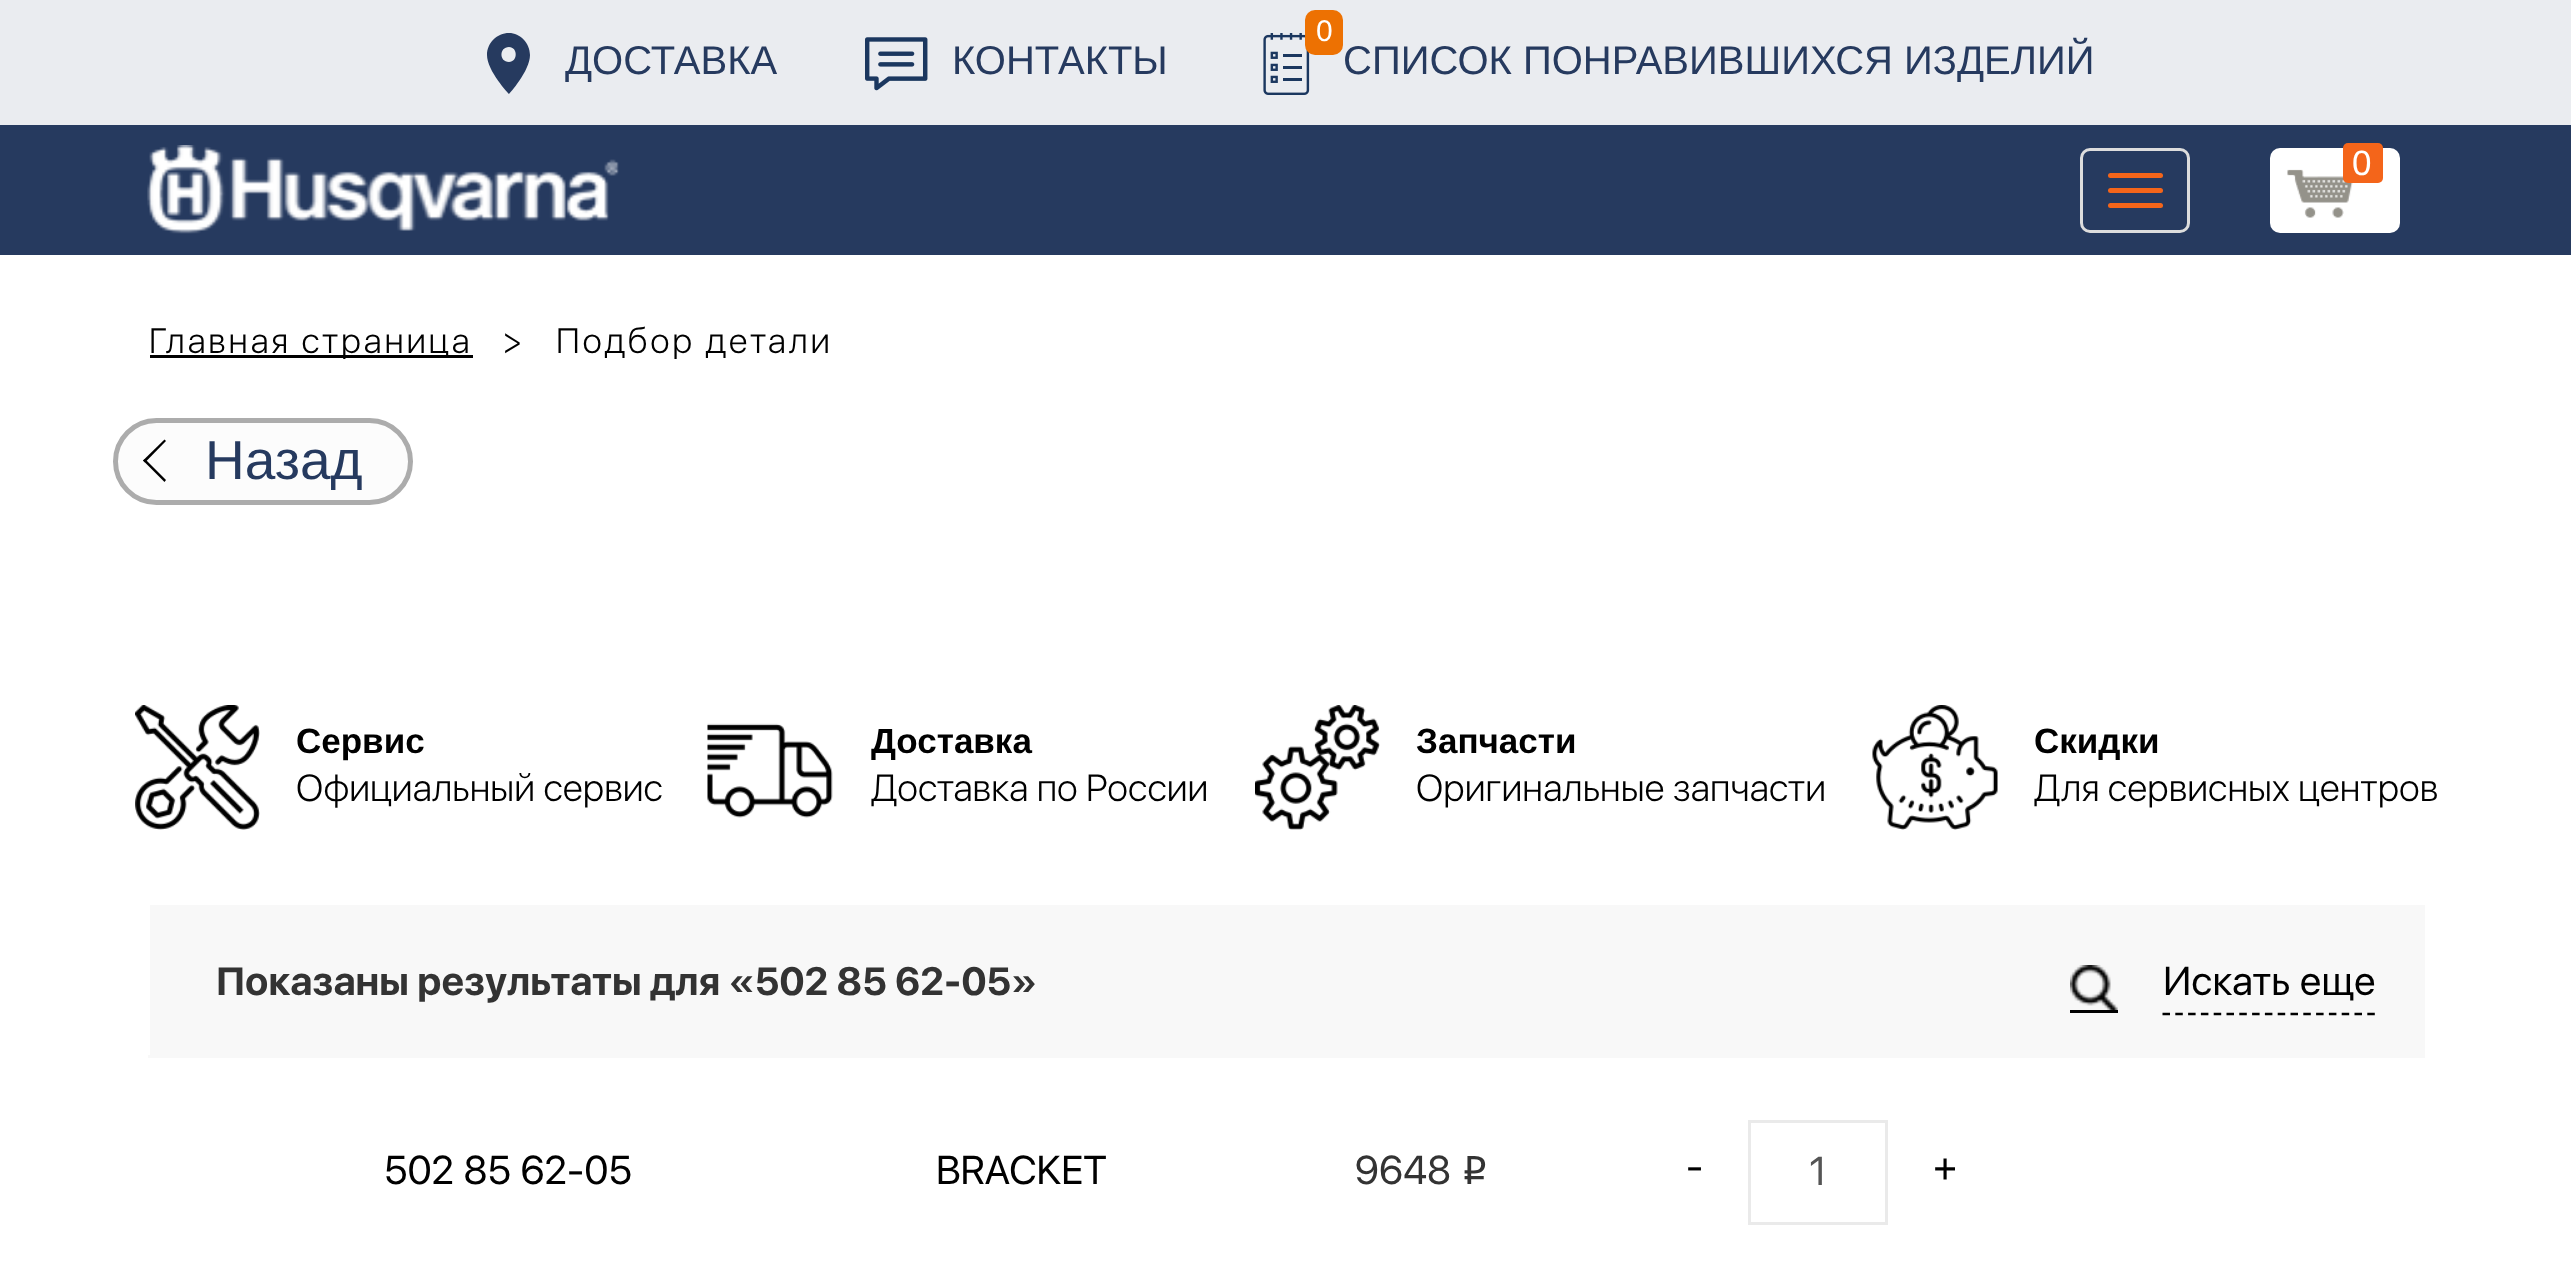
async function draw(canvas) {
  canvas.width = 2571
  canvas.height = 1270
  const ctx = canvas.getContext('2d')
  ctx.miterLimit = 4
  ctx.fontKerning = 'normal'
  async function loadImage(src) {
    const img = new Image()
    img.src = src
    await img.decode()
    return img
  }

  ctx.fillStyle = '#fff'
  ctx.fillRect(0, 0, 2571, 1270)
  ctx.fillStyle = '#eaecf0'
  ctx.fillRect(0, 0, 2571, 125)
  ctx.fillStyle = '#263a5f'
  ctx.beginPath()
  ctx.moveTo(509, 62)
  ctx.bezierCurveTo(499, 62, 499, 47, 509, 47)
  ctx.bezierCurveTo(518, 47, 518, 62, 509, 62)
  ctx.moveTo(509, 33)
  ctx.bezierCurveTo(497, 33, 487, 43, 487, 55)
  ctx.bezierCurveTo(487, 71, 509, 94, 509, 94)
  ctx.bezierCurveTo(509, 94, 530, 71, 530, 55)
  ctx.bezierCurveTo(530, 43, 520, 33, 509, 33)
  ctx.closePath()
  ctx.fill()
  ctx.font = '40px Liberation Sans'
  ctx.fillText('ДОСТАВКА', 565, 74)
  ctx.drawImage(await loadImage('image0.png'), 865, 37, 63, 54)
  ctx.fillText('КОНТАКТЫ', 952, 74)
  ctx.drawImage(await loadImage('image1.png'), 1263, 33, 47, 62)
  ctx.fillStyle = '#ed7102'
  ctx.beginPath()
  ctx.roundRect(1305, 10, 38, 45, 10)
  ctx.fill()
  ctx.font = '30px Liberation Sans'
  ctx.fillStyle = '#fff'
  ctx.fillText('0', 1316, 41)
  ctx.font = '40px Liberation Sans'
  ctx.fillStyle = '#263a5f'
  ctx.fillText('СПИСОК ПОНРАВИВШИХСЯ ИЗДЕЛИЙ', 1343, 74)
  ctx.fillRect(0, 125, 2571, 130)
  ctx.drawImage(await loadImage('image2.png'), 147, 145, 472, 89)
  ctx.beginPath()
  ctx.roundRect(2081.5, 149.5, 107, 82, 8.5)
  ctx.strokeStyle = '#ddd'
  ctx.lineWidth = 3
  ctx.stroke()
  ctx.fillStyle = '#f4651a'
  ctx.beginPath()
  ctx.roundRect(2108, 173, 55, 5, 2.5)
  ctx.fill()
  ctx.beginPath()
  ctx.roundRect(2108, 188, 55, 5, 2.5)
  ctx.fill()
  ctx.beginPath()
  ctx.roundRect(2108, 203, 55, 5, 2.5)
  ctx.fill()
  ctx.fillStyle = '#fff'
  ctx.beginPath()
  ctx.roundRect(2270, 148, 130, 85, 10)
  ctx.fill()
  ctx.drawImage(await loadImage('image3.png'), 2287, 169, 66, 49)
  ctx.fillStyle = '#f4651a'
  ctx.beginPath()
  ctx.roundRect(2343, 143, 40, 40, 5)
  ctx.fill()
  ctx.font = '35px Liberation Sans'
  ctx.fillStyle = '#fff'
  ctx.fillText('0', 2352, 175)
  ctx.fillStyle = '#000'
  ctx.fillRect(150, 355, 323, 3)
  ctx.letterSpacing = '2.75px'
  ctx.font = '300 35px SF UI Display'
  ctx.fillText('Главная страница', 149, 353)
  ctx.fillText('>', 502, 353)
  ctx.fillText('Подбор детали', 556, 353)
  ctx.fillStyle = '#fcfcfc'
  ctx.beginPath()
  ctx.roundRect(115.5, 420.5, 295, 82, 41)
  ctx.fill()
  ctx.strokeStyle = '#acacac'
  ctx.lineWidth = 5
  ctx.stroke()
  ctx.fillStyle = '#000'
  ctx.beginPath()
  ctx.moveTo(143, 460.5)
  ctx.lineTo(164.5, 439.5)
  ctx.lineTo(166, 441)
  ctx.lineTo(145, 462.5)
  ctx.closePath()
  ctx.fill()
  ctx.beginPath()
  ctx.moveTo(143, 460.5)
  ctx.lineTo(145, 459)
  ctx.lineTo(166, 480)
  ctx.lineTo(164.5, 482)
  ctx.closePath()
  ctx.fill()
  ctx.letterSpacing = '0px'
  ctx.font = '55px Liberation Sans'
  ctx.fillStyle = '#263a5f'
  ctx.fillText('Назад', 205, 479)
  ctx.drawImage(await loadImage('image4.png'), 135, 705, 125, 125)
  ctx.font = 'bold 35px Liberation Sans'
  ctx.fillStyle = '#000'
  ctx.fillText('Сервис', 296, 753)
  ctx.font = '300 37.5px SF UI Display'
  ctx.fillText('Официальный сервис', 296, 801)
  ctx.drawImage(await loadImage('image5.png'), 707, 723, 126, 95)
  ctx.font = 'bold 35px Liberation Sans'
  ctx.fillText('Доставка', 871, 753)
  ctx.font = '300 37.5px SF UI Display'
  ctx.fillText('Доставка по России', 871, 801)
  ctx.drawImage(await loadImage('image6.png'), 1255, 705, 125, 125)
  ctx.font = 'bold 35px Liberation Sans'
  ctx.fillText('Запчасти', 1416, 753)
  ctx.font = '300 37.5px SF UI Display'
  ctx.fillText('Оригинальные запчасти', 1416, 801)
  ctx.drawImage(await loadImage('image7.png'), 1872, 705, 126, 125)
  ctx.font = 'bold 35px Liberation Sans'
  ctx.fillText('Скидки', 2034, 753)
  ctx.font = '300 37.5px SF UI Display'
  ctx.fillText('Для сервисных центров', 2034, 801)
  ctx.fillStyle = '#f8f8f8'
  ctx.fillRect(150, 905, 2275, 150)
  ctx.font = 'bold 40px SF UI Display'
  ctx.fillStyle = '#333'
  ctx.fillText('Показаны результаты для «502 85 62-05»', 216, 995)
  ctx.fillStyle = '#f8f8f8'
  ctx.fillRect(148, 1055, 2277, 3)
  ctx.drawImage(await loadImage('image8.png'), 2070, 965, 48, 45)
  ctx.fillStyle = '#000'
  ctx.fillRect(2070, 1010, 48, 3)
  ctx.font = '40px SF UI Display'
  ctx.fillText('Искать еще', 2163, 995)
  ctx.beginPath()
  ctx.moveTo(2162.5, 1014)
  ctx.lineTo(2375, 1014)
  ctx.strokeStyle = '#000'
  ctx.lineWidth = 2.5
  ctx.setLineDash([7.5, 5.3])
  ctx.stroke()
  ctx.fillText('502 85 62-05', 384, 1184)
  ctx.fillText('BRACKET', 936, 1184)
  ctx.fillStyle = '#333'
  ctx.fillText('9648', 1355, 1184)
  ctx.font = '40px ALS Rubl'
  ctx.fillText('i', 1461, 1184)
  ctx.font = '40px SF UI Display'
  ctx.fillStyle = '#000'
  ctx.fillText('-', 1686, 1180)
  ctx.strokeStyle = '#eaeaea'
  ctx.lineWidth = 3
  ctx.setLineDash([])
  ctx.strokeRect(1749.5, 1121.5, 137, 102)
  ctx.fillStyle = '#555'
  ctx.fillText('1', 1809, 1185)
  ctx.fillStyle = '#000'
  ctx.fillText('+', 1933, 1180)
}

draw(document.querySelector('canvas'))
